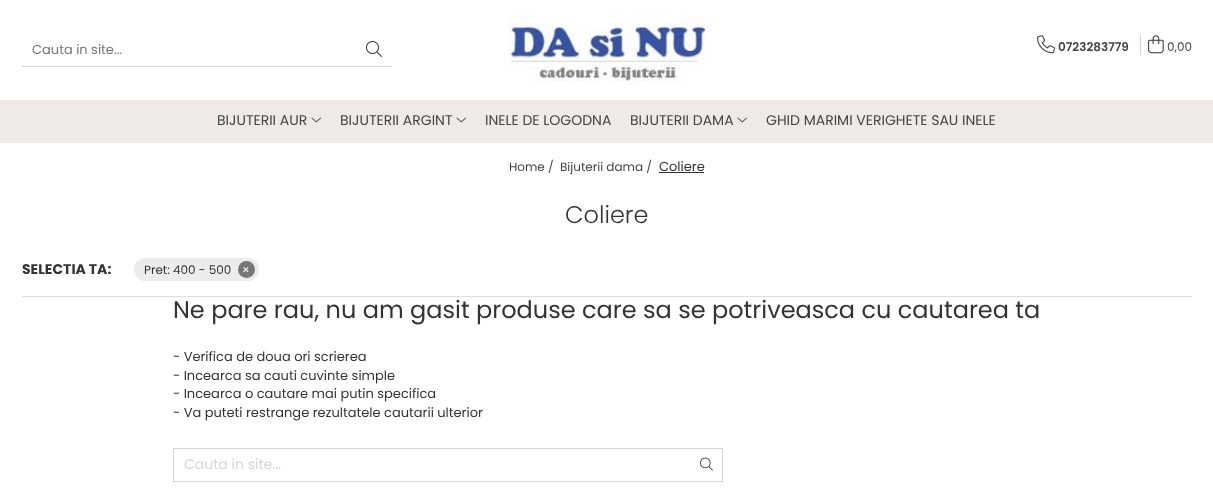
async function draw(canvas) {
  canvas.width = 1213
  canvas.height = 490
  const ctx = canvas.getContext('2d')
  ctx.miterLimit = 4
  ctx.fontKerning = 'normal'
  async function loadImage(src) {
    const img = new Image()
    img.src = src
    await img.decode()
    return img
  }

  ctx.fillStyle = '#fff'
  ctx.fillRect(0, 0, 1213, 490)
  ctx.fillStyle = '#d5d5d5'
  ctx.fillRect(22, 66, 370, 1)
  ctx.font = '13px Poppins'
  ctx.fillStyle = '#757575'
  ctx.fillText('Cauta in site...', 32, 54)
  ctx.drawImage(await loadImage('image0.png'), 366, 41, 16, 16)
  ctx.drawImage(await loadImage('image1.png'), 508, 15, 197, 70)
  ctx.drawImage(await loadImage('image2.png'), 1037, 35, 18, 19)
  ctx.font = '600 12px Poppins'
  ctx.fillStyle = '#444'
  ctx.fillText('0723283779', 1058, 51)
  ctx.fillStyle = '#d5d5d5'
  ctx.fillRect(1140, 35, 1, 20)
  ctx.drawImage(await loadImage('image3.png'), 1148, 35, 16, 19)
  ctx.font = '12px Poppins'
  ctx.fillStyle = '#444'
  ctx.fillText('0,00', 1167, 51)
  ctx.fillStyle = '#efeae5'
  ctx.fillRect(0, 100, 1213, 43)
  ctx.font = '14px Poppins'
  ctx.fillStyle = '#444'
  ctx.fillText('BIJUTERII AUR', 217, 125)
  ctx.drawImage(await loadImage('image4.png'), 311, 117, 10, 6)
  ctx.fillText('BIJUTERII ARGINT', 340, 125)
  ctx.drawImage(await loadImage('image4.png'), 456, 117, 10, 6)
  ctx.fillText('INELE DE LOGODNA', 485, 125)
  ctx.fillText('BIJUTERII DAMA', 630, 125)
  ctx.drawImage(await loadImage('image4.png'), 737, 117, 10, 6)
  ctx.fillText('GHID MARIMI VERIGHETE SAU INELE', 766, 125)
  ctx.font = '12px Poppins'
  ctx.fillText('Home /', 509, 171)
  ctx.fillText('Bijuterii dama /', 560, 171)
  ctx.font = '13px Poppins'
  ctx.fillStyle = '#333'
  ctx.fillText('Coliere', 659, 171)
  ctx.fillRect(659, 172, 45, 1)
  ctx.font = '300 24px Poppins'
  ctx.fillText('Coliere', 565, 223)
  ctx.font = 'bold 14px Poppins'
  ctx.fillText('SELECTIA TA:', 22, 274)
  ctx.fillStyle = '#ececec'
  ctx.beginPath()
  ctx.roundRect(134, 258, 125, 23, 11.5)
  ctx.fill()
  ctx.font = '12px Poppins'
  ctx.fillStyle = '#333'
  ctx.fillText('Pret: 400 - 500', 144, 274)
  ctx.fillStyle = '#777'
  ctx.beginPath()
  ctx.arc(246.5, 269.5, 8.5, 0, 2 * Math.PI)
  ctx.fill()
  ctx.fillStyle = '#fff'
  ctx.fillText('×', 242, 274)
  ctx.fillStyle = '#dfdfdf'
  ctx.fillRect(22, 296, 1170, 1)
  ctx.font = '24px Poppins'
  ctx.fillStyle = '#333'
  ctx.fillText('Ne pare rau, nu am gasit produse care sa se potriveasca cu cautarea ta', 173, 318)
  ctx.font = '13px Poppins'
  ctx.fillText('- Verifica de doua ori scrierea', 173, 361)
  ctx.fillText('- Incearca sa cauti cuvinte simple', 173, 380)
  ctx.fillText('- Incearca o cautare mai putin specifica', 173, 398)
  ctx.fillText('- Va puteti restrange rezultatele cautarii ulterior', 173, 417)
  ctx.strokeStyle = '#d5d5d5'
  ctx.strokeRect(173.5, 448.5, 549, 33)
  ctx.font = '14px Poppins'
  ctx.fillStyle = '#d5d5d5'
  ctx.fillText('Cauta in site...', 184, 469)
  ctx.drawImage(await loadImage('image5.png'), 700, 457, 13, 14)
}

draw(document.querySelector('canvas'))
